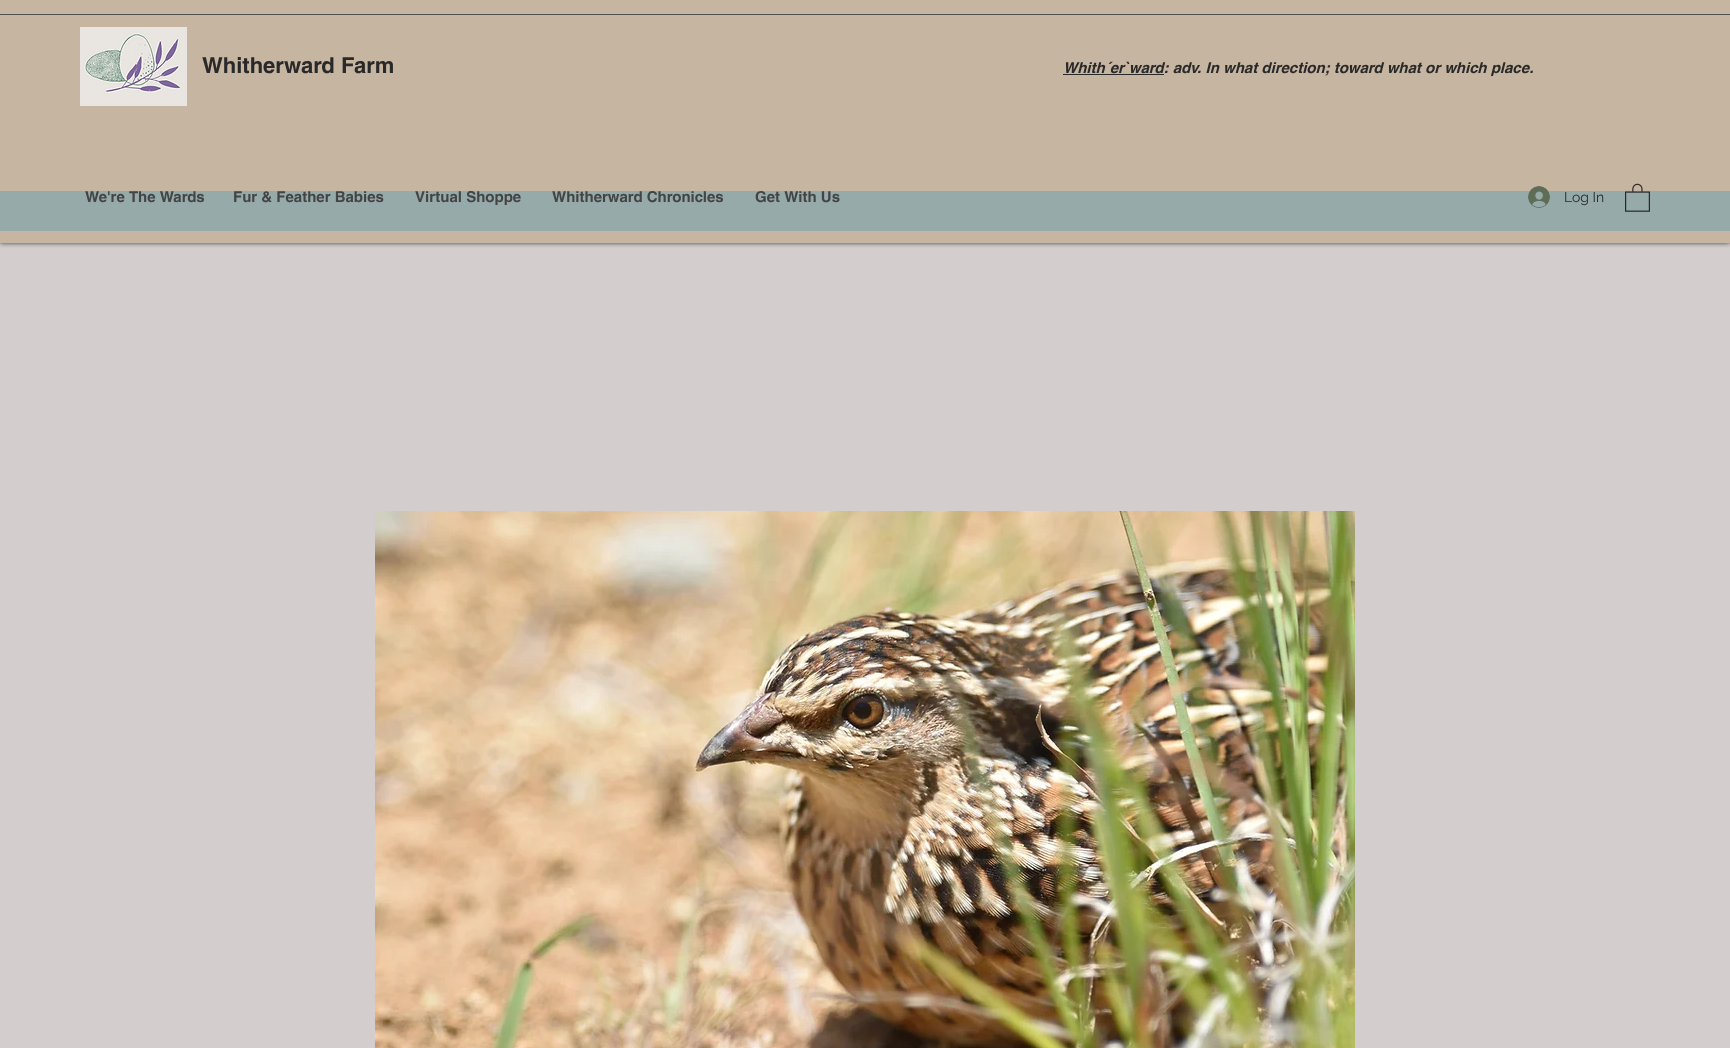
async function draw(canvas) {
  canvas.width = 1730
  canvas.height = 1048
  const ctx = canvas.getContext('2d')
  ctx.miterLimit = 4
  ctx.fontKerning = 'normal'
  async function loadImage(src) {
    const img = new Image()
    img.src = src
    await img.decode()
    return img
  }

  ctx.fillStyle = '#d3cdcd'
  ctx.fillRect(0, 0, 1730, 1048)
  ctx.fillStyle = '#000000b3'
  ctx.filter = 'blur(2.5px)'
  ctx.beginPath()
  ctx.rect(0, 0, 1730, 243)
  ctx.fill()
  ctx.filter = 'none'
  ctx.fillStyle = '#c5b5a1'
  ctx.fillRect(0, 0, 1730, 243)
  ctx.fillStyle = '#545252'
  ctx.fillRect(0, 14, 1730, 1)
  ctx.drawImage(await loadImage('image0.png'), 80, 27, 107, 79)
  ctx.font = 'bold 22px helvetica'
  ctx.fillStyle = '#2a2929'
  ctx.fillText('Whitherward Farm', 202, 73)
  ctx.fillRect(1063, 74, 101, 1)
  ctx.font = 'italic bold 15px helvetica'
  ctx.fillText('Whith´er`ward: adv. In what direction; toward what or which place.', 1063, 73)
  ctx.fillStyle = '#96aaaa'
  ctx.fillRect(0, 191, 1730, 40)
  ctx.font = 'bold 15px helvetica'
  ctx.fillStyle = '#444'
  ctx.fillText('We\'re The Wards', 85, 202)
  ctx.fillText('Fur & Feather Babies', 233, 202)
  ctx.fillText('Virtual Shoppe', 415, 202)
  ctx.fillText('Whitherward Chronicles', 552, 202)
  ctx.fillText('Get With Us', 755, 202)
  ctx.drawImage(await loadImage('image1.png'), 1528, 186, 22, 22)
  ctx.font = '14px Raleway'
  ctx.fillStyle = '#2a2929'
  ctx.fillText('Log In', 1564, 202)
  ctx.drawImage(await loadImage('image2.png'), 1625, 183, 25, 29)
  ctx.drawImage(await loadImage('image3.png'), 375, 511, 980, 537)
}

draw(document.querySelector('canvas'))
